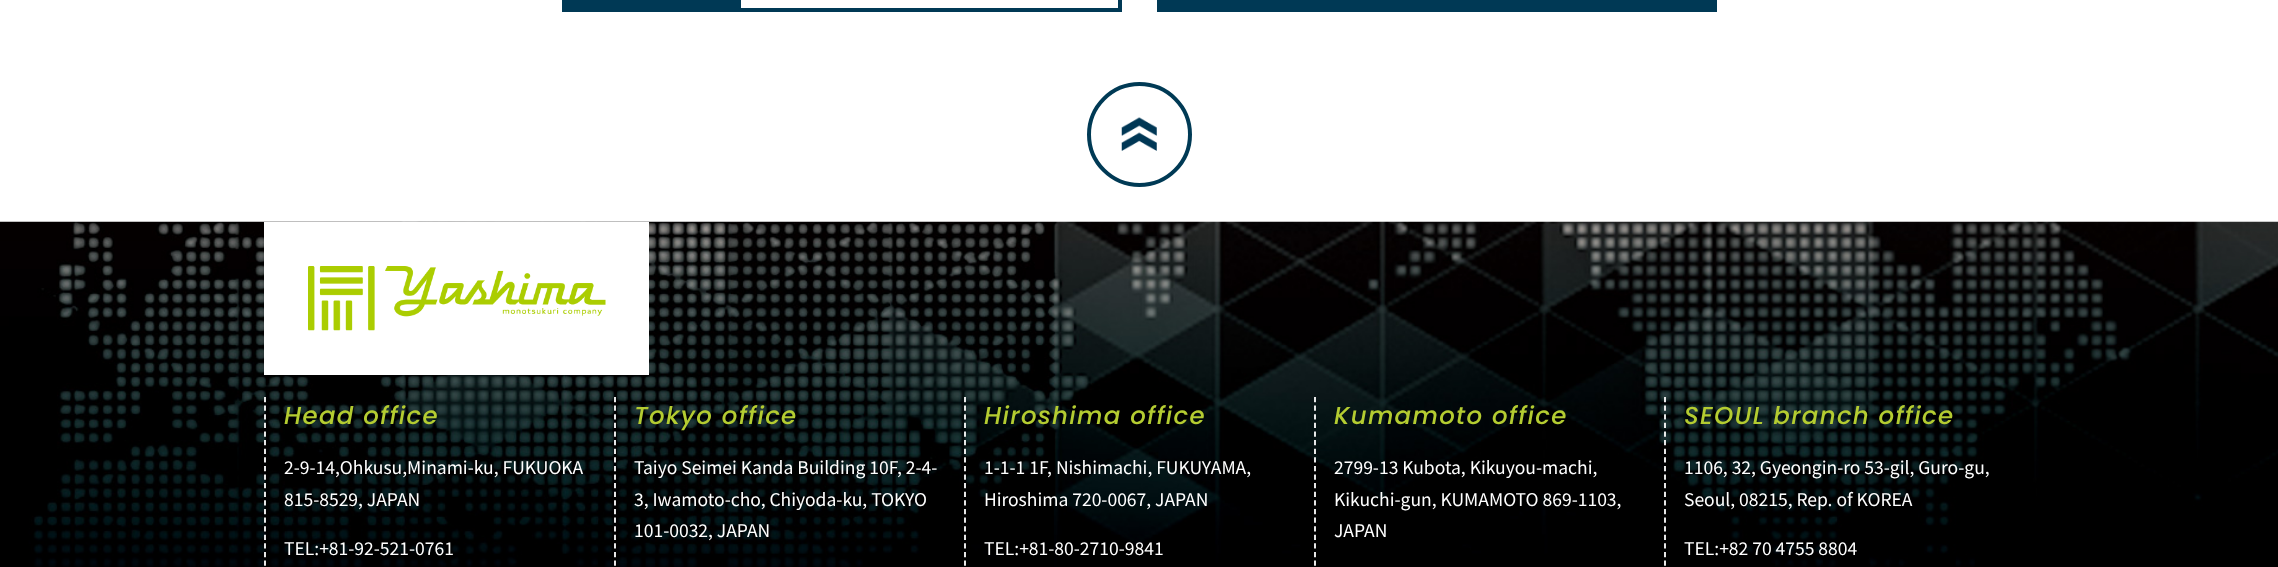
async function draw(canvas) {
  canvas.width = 2278
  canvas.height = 567
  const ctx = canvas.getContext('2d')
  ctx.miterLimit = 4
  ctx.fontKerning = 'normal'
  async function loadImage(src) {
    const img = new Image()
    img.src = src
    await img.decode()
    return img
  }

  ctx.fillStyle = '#fff'
  ctx.fillRect(0, 0, 2278, 567)
  ctx.fillStyle = '#003955'
  ctx.fillRect(562, 0, 175, 12)
  ctx.strokeStyle = '#003955'
  ctx.lineWidth = 4
  ctx.strokeRect(739, -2, 381, 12)
  ctx.fillRect(1157, 0, 560, 12)
  ctx.drawImage(await loadImage('image0.png'), 0, 221, 2278, 346)
  ctx.beginPath()
  ctx.arc(1139.5, 134.5, 50.5, 0, 2 * Math.PI)
  ctx.strokeStyle = '#003a55'
  ctx.stroke()
  ctx.drawImage(await loadImage('image1.png'), 1121, 117, 36, 34)
  ctx.fillStyle = '#fff'
  ctx.fillRect(264, 222, 385, 153)
  ctx.drawImage(await loadImage('image2.png'), 308, 266, 298, 65)
  ctx.beginPath()
  ctx.moveTo(265, 397)
  ctx.lineTo(265, 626.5)
  ctx.strokeStyle = '#fff'
  ctx.lineWidth = 1.8
  ctx.setLineDash([5.25, 3.36])
  ctx.stroke()
  ctx.letterSpacing = '1.25px'
  ctx.font = 'italic 500 24.5px Poppins'
  ctx.fillStyle = '#b4cc31'
  ctx.fillText('Head office', 284, 424)
  ctx.letterSpacing = '0px'
  ctx.font = '17.5px Noto Sans JP'
  ctx.fillStyle = '#fff'
  ctx.fillText('2-9-14,Ohkusu,Minami-ku, FUKUOKA', 284, 474)
  ctx.fillText('815-8529, JAPAN', 284, 506)
  ctx.fillText('TEL:+81-92-521-0761', 284, 555)
  ctx.beginPath()
  ctx.moveTo(615, 397)
  ctx.lineTo(615, 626.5)
  ctx.stroke()
  ctx.letterSpacing = '1.25px'
  ctx.font = 'italic 500 24.5px Poppins'
  ctx.fillStyle = '#b4cc31'
  ctx.fillText('Tokyo office', 634, 424)
  ctx.letterSpacing = '0px'
  ctx.font = '17.5px Noto Sans JP'
  ctx.fillStyle = '#fff'
  ctx.fillText('Taiyo Seimei Kanda Building 10F, 2-4-', 634, 474)
  ctx.fillText('3, Iwamoto-cho, Chiyoda-ku, TOKYO', 634, 506)
  ctx.fillText('101-0032, JAPAN', 634, 537)
  ctx.beginPath()
  ctx.moveTo(965, 397)
  ctx.lineTo(965, 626.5)
  ctx.stroke()
  ctx.letterSpacing = '1.25px'
  ctx.font = 'italic 500 24.5px Poppins'
  ctx.fillStyle = '#b4cc31'
  ctx.fillText('Hiroshima office', 984, 424)
  ctx.letterSpacing = '0px'
  ctx.font = '17.5px Noto Sans JP'
  ctx.fillStyle = '#fff'
  ctx.fillText('1-1-1 1F, Nishimachi, FUKUYAMA,', 984, 474)
  ctx.fillText('Hiroshima 720-0067, JAPAN', 984, 506)
  ctx.fillText('TEL:+81-80-2710-9841', 984, 555)
  ctx.beginPath()
  ctx.moveTo(1315, 397)
  ctx.lineTo(1315, 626.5)
  ctx.stroke()
  ctx.letterSpacing = '1.25px'
  ctx.font = 'italic 500 24.5px Poppins'
  ctx.fillStyle = '#b4cc31'
  ctx.fillText('Kumamoto office', 1334, 424)
  ctx.letterSpacing = '0px'
  ctx.font = '17.5px Noto Sans JP'
  ctx.fillStyle = '#fff'
  ctx.fillText('2799-13 Kubota, Kikuyou-machi,', 1334, 474)
  ctx.fillText('Kikuchi-gun, KUMAMOTO 869-1103,', 1334, 506)
  ctx.fillText('JAPAN', 1334, 537)
  ctx.beginPath()
  ctx.moveTo(1665, 397)
  ctx.lineTo(1665, 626.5)
  ctx.stroke()
  ctx.letterSpacing = '1.25px'
  ctx.font = 'italic 500 24.5px Poppins'
  ctx.fillStyle = '#b4cc31'
  ctx.fillText('SEOUL branch office', 1684, 424)
  ctx.letterSpacing = '0px'
  ctx.font = '17.5px Noto Sans JP'
  ctx.fillStyle = '#fff'
  ctx.fillText('1106, 32, Gyeongin-ro 53-gil, Guro-gu,', 1684, 474)
  ctx.fillText('Seoul, 08215, Rep. of KOREA', 1684, 506)
  ctx.fillText('TEL:+82 70 4755 8804', 1684, 555)
}

draw(document.querySelector('canvas'))
